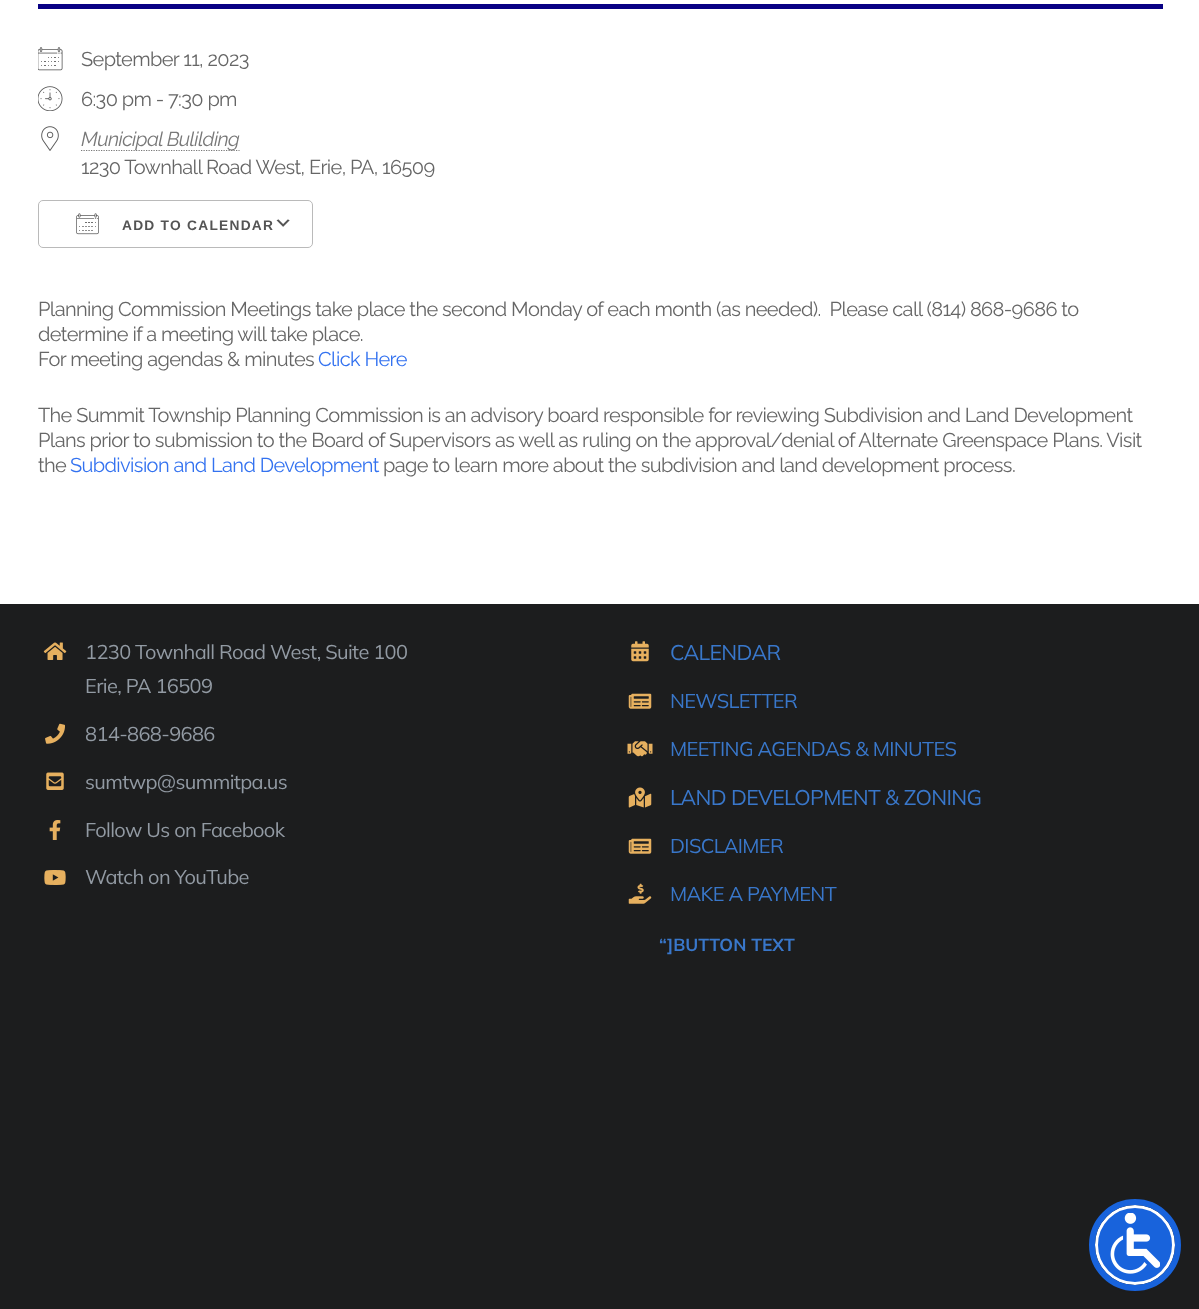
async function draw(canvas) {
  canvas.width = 1199
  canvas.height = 1309
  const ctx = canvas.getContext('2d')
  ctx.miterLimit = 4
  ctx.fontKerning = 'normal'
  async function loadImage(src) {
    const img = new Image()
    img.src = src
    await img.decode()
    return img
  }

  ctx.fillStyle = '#fff'
  ctx.fillRect(0, 0, 1199, 1309)
  ctx.fillStyle = '#080084'
  ctx.fillRect(38, 4, 1125, 5)
  ctx.drawImage(await loadImage('image0.png'), 38, 47, 25, 24)
  ctx.letterSpacing = '-0.62px'
  ctx.font = '20px Raleway'
  ctx.fillStyle = '#666'
  ctx.fillText('September 11, 2023', 81, 66)
  ctx.drawImage(await loadImage('image1.png'), 38, 86, 25, 25)
  ctx.fillText('6:30 pm - 7:30 pm', 81, 106)
  ctx.drawImage(await loadImage('image2.png'), 41, 126, 18, 25)
  ctx.beginPath()
  ctx.moveTo(81, 150.5)
  ctx.lineTo(239.5, 150.5)
  ctx.strokeStyle = '#787878'
  ctx.lineWidth = 1.2
  ctx.setLineDash([1.25, 1.25])
  ctx.stroke()
  ctx.font = 'italic 20px Raleway'
  ctx.fillStyle = '#787878'
  ctx.fillText('Municipal Bulilding', 81, 146)
  ctx.font = '20px Raleway'
  ctx.fillStyle = '#666'
  ctx.fillText('1230 Townhall Road West, Erie, PA, 16509', 81, 174)
  ctx.drawImage(await loadImage('image3.png'), 276, 219, 14, 8)
  ctx.beginPath()
  ctx.roundRect(38.5, 200.5, 274, 47, 4.5)
  ctx.strokeStyle = '#bababa'
  ctx.lineWidth = 1
  ctx.setLineDash([])
  ctx.stroke()
  ctx.drawImage(await loadImage('image4.png'), 76, 213, 23, 22)
  ctx.letterSpacing = '1.25px'
  ctx.font = 'bold 13.75px Liberation Sans'
  ctx.fillStyle = '#545454'
  ctx.fillText('ADD TO CALENDAR', 122, 230)
  ctx.letterSpacing = '-0.62px'
  ctx.font = '20px Raleway'
  ctx.fillStyle = '#666'
  ctx.fillText('Planning Commission Meetings take place the second Monday of each month (as needed).  Please call (814) 868-9686 to', 38, 316)
  ctx.fillText('determine if a meeting will take place.', 38, 341)
  ctx.fillText('For meeting agendas & minutes', 38, 366)
  ctx.fillStyle = '#3372f0'
  ctx.fillText('Click Here', 318, 366)
  ctx.fillStyle = '#666'
  ctx.fillText('The Summit Township Planning Commission is an advisory board responsible for reviewing Subdivision and Land Development', 38, 422)
  ctx.fillText('Plans prior to submission to the Board of Supervisors as well as ruling on the approval/denial of Alternate Greenspace Plans. Visit', 38, 447)
  ctx.fillText('the', 38, 472)
  ctx.fillStyle = '#3372f0'
  ctx.fillText('Subdivision and Land Development', 70, 472)
  ctx.fillStyle = '#666'
  ctx.fillText('page to learn more about the subdivision and land development process.', 383, 472)
  ctx.fillStyle = '#1c1d1e'
  ctx.fillRect(0, 604, 1199, 705)
  ctx.drawImage(await loadImage('image5.png'), 43, 642, 24, 18)
  ctx.font = '20px Mulish'
  ctx.fillStyle = '#929aa3'
  ctx.fillText('1230 Townhall Road West, Suite 100', 85, 659)
  ctx.fillText('Erie, PA 16509', 85, 693)
  ctx.drawImage(await loadImage('image6.png'), 45, 723, 20, 21)
  ctx.fillText('814-868-9686', 85, 741)
  ctx.drawImage(await loadImage('image7.png'), 46, 772, 18, 18)
  ctx.fillText('sumtwp@summitpa.us', 85, 789)
  ctx.drawImage(await loadImage('image8.png'), 49, 820, 12, 20)
  ctx.fillText('Follow Us on Facebook', 85, 837)
  ctx.drawImage(await loadImage('image9.png'), 44, 870, 22, 15)
  ctx.fillText('Watch on YouTube', 85, 884)
  ctx.drawImage(await loadImage('image10.png'), 631, 641, 18, 21)
  ctx.font = '21.25px Mulish'
  ctx.fillStyle = '#3977ca'
  ctx.fillText('CALENDAR', 670, 660)
  ctx.drawImage(await loadImage('image11.png'), 628, 693, 24, 16)
  ctx.font = '20px Mulish'
  ctx.fillText('NEWSLETTER', 670, 708)
  ctx.drawImage(await loadImage('image12.png'), 627, 741, 26, 16)
  ctx.fillText('MEETING AGENDAS & MINUTES', 670, 756)
  ctx.drawImage(await loadImage('image13.png'), 628, 787, 24, 21)
  ctx.font = '21.25px Mulish'
  ctx.fillText('LAND DEVELOPMENT & ZONING', 670, 805)
  ctx.drawImage(await loadImage('image11.png'), 628, 838, 24, 16)
  ctx.font = '20px Mulish'
  ctx.fillText('DISCLAIMER', 670, 853)
  ctx.drawImage(await loadImage('image14.png'), 628, 883, 24, 21)
  ctx.fillText('MAKE A PAYMENT', 670, 901)
  ctx.letterSpacing = '0px'
  ctx.font = 'bold 17.5px Mulish'
  ctx.fillText('“]BUTTON TEXT', 659, 951)
  ctx.fillStyle = '#5d649433'
  ctx.filter = 'blur(2.5px)'
  ctx.beginPath()
  ctx.roundRect(1095, 1208, 80, 80, 40)
  ctx.fill()
  ctx.filter = 'none'
  ctx.fillStyle = '#1863dc'
  ctx.beginPath()
  ctx.arc(1135, 1245, 38.5, 0, 2 * Math.PI)
  ctx.fill()
  ctx.strokeStyle = '#fff'
  ctx.lineWidth = 3
  ctx.stroke()
  ctx.beginPath()
  ctx.arc(1135, 1245, 43, 0, 2 * Math.PI)
  ctx.strokeStyle = '#1863dc'
  ctx.lineWidth = 6
  ctx.stroke()
  ctx.drawImage(await loadImage('image15.png'), 1110, 1213, 50, 61)
}

draw(document.querySelector('canvas'))
